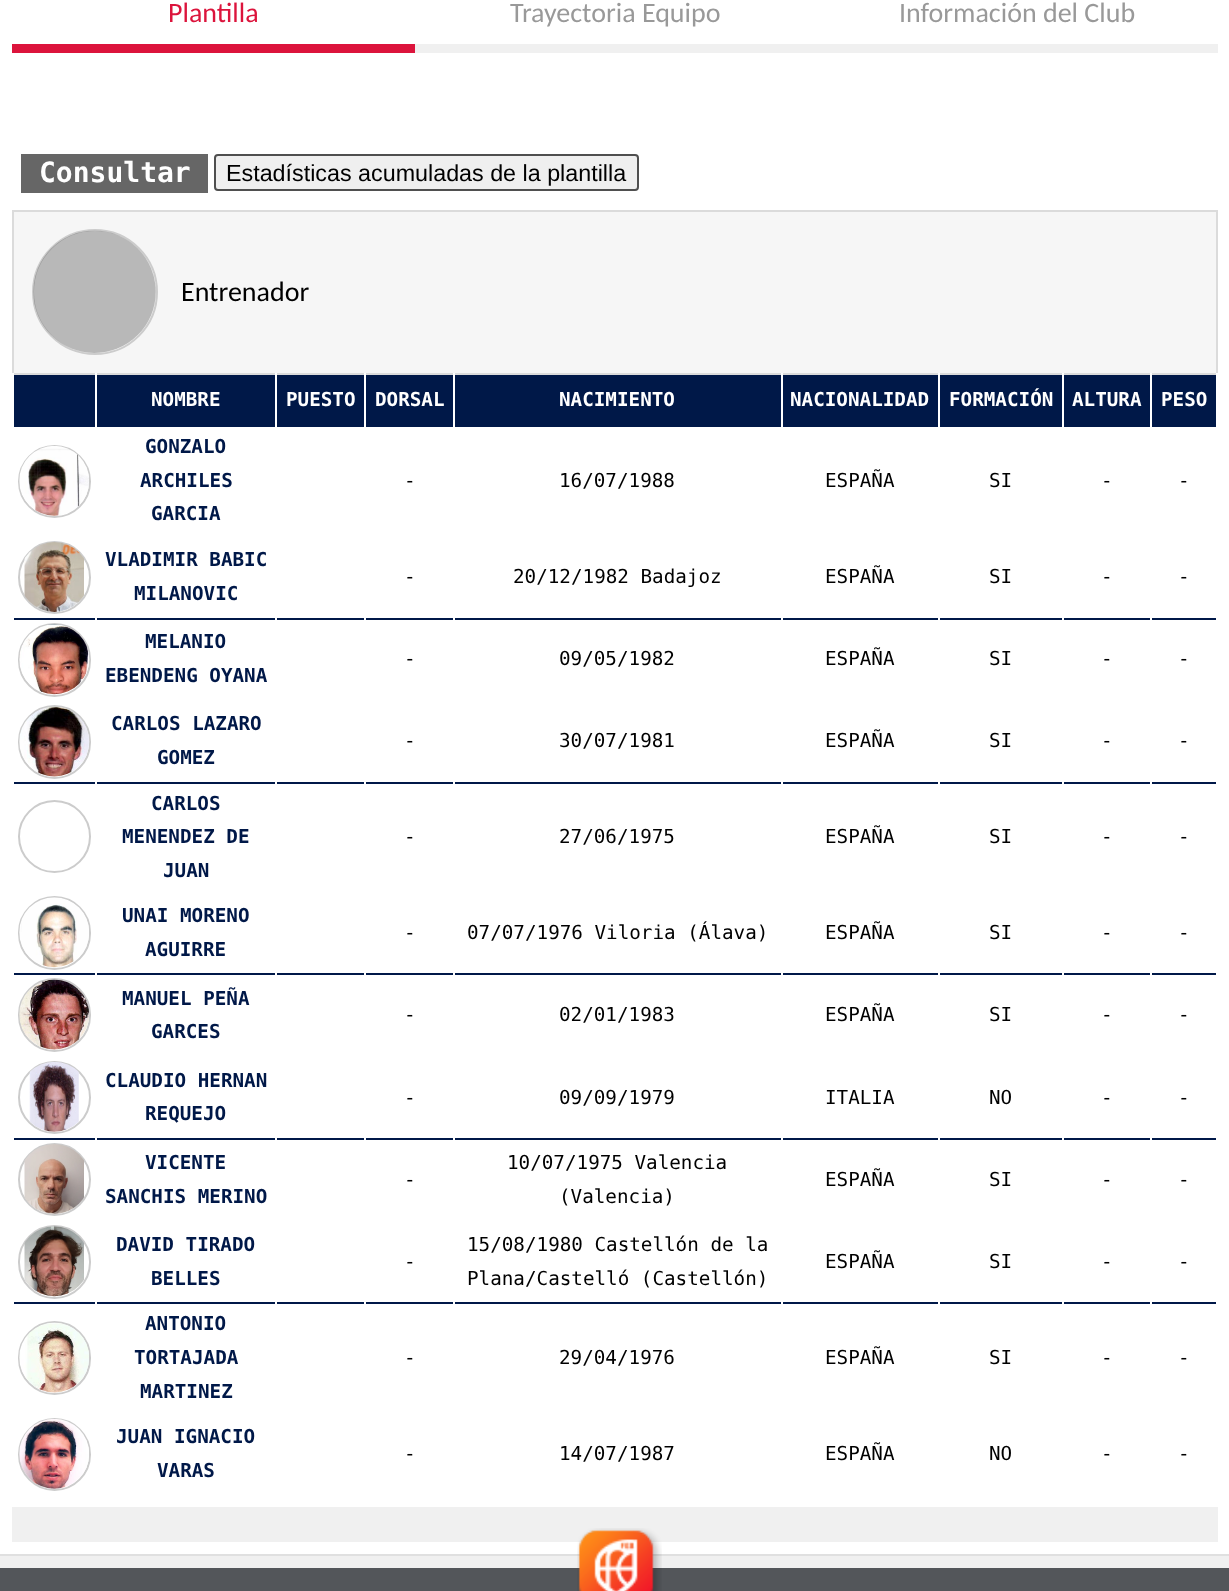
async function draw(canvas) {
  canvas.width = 1229
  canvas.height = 1591
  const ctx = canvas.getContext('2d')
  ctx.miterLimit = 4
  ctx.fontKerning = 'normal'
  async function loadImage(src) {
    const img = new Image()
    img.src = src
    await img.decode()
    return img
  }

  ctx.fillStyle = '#fff'
  ctx.fillRect(0, 0, 1229, 1591)
  ctx.fillStyle = '#dc143c'
  ctx.fillRect(12, 44, 403, 9)
  ctx.font = '28px Carlito'
  ctx.fillText('Plantilla', 168, 22)
  ctx.fillStyle = '#f0f0f0'
  ctx.fillRect(415, 44, 803, 9)
  ctx.fillStyle = '#999'
  ctx.fillText('Trayectoria Equipo', 510, 22)
  ctx.fillText('Información del Club', 899, 22)
  ctx.fillStyle = '#666'
  ctx.fillRect(21, 154, 187, 39)
  ctx.font = 'bold 28px DejaVu Sans Mono'
  ctx.fillStyle = '#fff'
  ctx.fillText('Consultar', 39, 182)
  ctx.fillStyle = '#efefef'
  ctx.beginPath()
  ctx.roundRect(215, 155, 423, 35, 3)
  ctx.fill()
  ctx.strokeStyle = '#4f4f4f'
  ctx.lineWidth = 2
  ctx.stroke()
  ctx.font = '23.3px Liberation Sans'
  ctx.fillStyle = '#000'
  ctx.fillText('Estadísticas acumuladas de la plantilla', 226, 181)
  ctx.fillStyle = '#f6f6f6'
  ctx.beginPath()
  ctx.rect(13, 211, 1204, 163)
  ctx.fill()
  ctx.strokeStyle = '#dbdbdb'
  ctx.stroke()
  ctx.beginPath()
  ctx.arc(95, 292, 62, 0, 2 * Math.PI)
  ctx.strokeStyle = '#ccc'
  ctx.stroke()
  ctx.drawImage(await loadImage('image0.png'), 33, 230, 123, 123)
  ctx.font = '28px Carlito'
  ctx.fillStyle = '#000'
  ctx.fillText('Entrenador', 181, 301)
  ctx.fillStyle = '#001848'
  ctx.fillRect(14, 375, 81, 50)
  ctx.fillStyle = '#fff'
  ctx.fillRect(12, 373, 2, 2)
  ctx.fillStyle = '#001848'
  ctx.fillRect(97, 375, 178, 50)
  ctx.fillStyle = '#fff'
  ctx.fillRect(95, 373, 2, 2)
  ctx.font = 'bold 19.25px DejaVu Sans Mono'
  ctx.fillText('NOMBRE', 151, 406)
  ctx.fillStyle = '#001848'
  ctx.fillRect(277, 375, 87, 50)
  ctx.fillStyle = '#fff'
  ctx.fillRect(275, 373, 2, 2)
  ctx.fillText('PUESTO', 286, 406)
  ctx.fillStyle = '#001848'
  ctx.fillRect(366, 375, 87, 50)
  ctx.fillStyle = '#fff'
  ctx.fillRect(364, 373, 2, 2)
  ctx.fillText('DORSAL', 375, 406)
  ctx.fillStyle = '#001848'
  ctx.fillRect(455, 375, 326, 50)
  ctx.fillStyle = '#fff'
  ctx.fillRect(453, 373, 2, 2)
  ctx.fillText('NACIMIENTO', 559, 406)
  ctx.fillStyle = '#001848'
  ctx.fillRect(783, 375, 155, 50)
  ctx.fillStyle = '#fff'
  ctx.fillRect(781, 373, 2, 2)
  ctx.fillText('NACIONALIDAD', 790, 406)
  ctx.fillStyle = '#001848'
  ctx.fillRect(940, 375, 122, 50)
  ctx.fillStyle = '#fff'
  ctx.fillRect(938, 373, 2, 2)
  ctx.fillText('FORMACIÓN', 949, 406)
  ctx.fillStyle = '#001848'
  ctx.fillRect(1064, 375, 86, 50)
  ctx.fillStyle = '#fff'
  ctx.fillRect(1062, 373, 2, 2)
  ctx.fillText('ALTURA', 1072, 406)
  ctx.fillStyle = '#001848'
  ctx.fillRect(1152, 375, 64, 50)
  ctx.fillStyle = '#fff'
  ctx.fillRect(1216, 373, 2, 2)
  ctx.fillRect(1150, 373, 2, 2)
  ctx.fillText('PESO', 1161, 406)
  ctx.fillStyle = '#001848'
  ctx.fillRect(12, 425, 1206, 2)
  ctx.fillStyle = '#fff'
  ctx.fillRect(95, 425, 2, 2)
  ctx.fillRect(12, 425, 2, 2)
  ctx.beginPath()
  ctx.arc(54.5, 481.5, 35.5, 0, 2 * Math.PI)
  ctx.stroke()
  ctx.drawImage(await loadImage('image1.png'), 19, 446, 70, 70)
  ctx.fillRect(364, 425, 2, 2)
  ctx.fillRect(275, 425, 2, 2)
  ctx.fillStyle = '#001848'
  ctx.fillText('GONZALO', 145, 453)
  ctx.fillText('ARCHILES', 140, 487)
  ctx.fillText('GARCIA', 151, 520)
  ctx.fillStyle = '#fff'
  ctx.fillRect(453, 425, 2, 2)
  ctx.font = '19.25px DejaVu Sans Mono'
  ctx.fillStyle = '#000'
  ctx.fillText('-', 404, 487)
  ctx.fillStyle = '#fff'
  ctx.fillRect(781, 425, 2, 2)
  ctx.fillStyle = '#000'
  ctx.fillText('16/07/1988', 559, 487)
  ctx.fillStyle = '#fff'
  ctx.fillRect(938, 425, 2, 2)
  ctx.fillStyle = '#000'
  ctx.fillText('ESPAÑA', 825, 487)
  ctx.fillStyle = '#fff'
  ctx.fillRect(1062, 425, 2, 2)
  ctx.fillStyle = '#000'
  ctx.fillText('SI', 989, 487)
  ctx.fillStyle = '#fff'
  ctx.fillRect(1150, 425, 2, 2)
  ctx.fillStyle = '#000'
  ctx.fillText('-', 1101, 487)
  ctx.fillStyle = '#fff'
  ctx.fillRect(1216, 425, 2, 2)
  ctx.fillStyle = '#000'
  ctx.fillText('-', 1178, 487)
  ctx.beginPath()
  ctx.arc(54.5, 577.5, 35.5, 0, 2 * Math.PI)
  ctx.stroke()
  ctx.drawImage(await loadImage('image2.png'), 24, 542, 60, 70)
  ctx.font = 'bold 19.25px DejaVu Sans Mono'
  ctx.fillStyle = '#001848'
  ctx.fillText('VLADIMIR BABIC', 105, 566)
  ctx.fillText('MILANOVIC', 134, 600)
  ctx.font = '19.25px DejaVu Sans Mono'
  ctx.fillStyle = '#000'
  ctx.fillText('-', 404, 583)
  ctx.fillText('20/12/1982 Badajoz', 513, 583)
  ctx.fillText('ESPAÑA', 825, 583)
  ctx.fillText('SI', 989, 583)
  ctx.fillText('-', 1101, 583)
  ctx.fillText('-', 1178, 583)
  ctx.fillStyle = '#001848'
  ctx.fillRect(12, 618, 1206, 2)
  ctx.fillStyle = '#fff'
  ctx.fillRect(95, 618, 2, 2)
  ctx.fillRect(12, 618, 2, 2)
  ctx.beginPath()
  ctx.roundRect(19, 624, 71, 72, 35.5)
  ctx.stroke()
  ctx.drawImage(await loadImage('image3.png'), 19, 624, 71, 71)
  ctx.fillRect(364, 618, 2, 2)
  ctx.fillRect(275, 618, 2, 2)
  ctx.font = 'bold 19.25px DejaVu Sans Mono'
  ctx.fillStyle = '#001848'
  ctx.fillText('MELANIO', 145, 648)
  ctx.fillText('EBENDENG OYANA', 105, 682)
  ctx.fillStyle = '#fff'
  ctx.fillRect(453, 618, 2, 2)
  ctx.font = '19.25px DejaVu Sans Mono'
  ctx.fillStyle = '#000'
  ctx.fillText('-', 404, 665)
  ctx.fillStyle = '#fff'
  ctx.fillRect(781, 618, 2, 2)
  ctx.fillStyle = '#000'
  ctx.fillText('09/05/1982', 559, 665)
  ctx.fillStyle = '#fff'
  ctx.fillRect(938, 618, 2, 2)
  ctx.fillStyle = '#000'
  ctx.fillText('ESPAÑA', 825, 665)
  ctx.fillStyle = '#fff'
  ctx.fillRect(1062, 618, 2, 2)
  ctx.fillStyle = '#000'
  ctx.fillText('SI', 989, 665)
  ctx.fillStyle = '#fff'
  ctx.fillRect(1150, 618, 2, 2)
  ctx.fillStyle = '#000'
  ctx.fillText('-', 1101, 665)
  ctx.fillStyle = '#fff'
  ctx.fillRect(1216, 618, 2, 2)
  ctx.fillStyle = '#000'
  ctx.fillText('-', 1178, 665)
  ctx.beginPath()
  ctx.roundRect(19, 706, 71, 72, 35.5)
  ctx.stroke()
  ctx.drawImage(await loadImage('image4.png'), 19, 706, 71, 71)
  ctx.font = 'bold 19.25px DejaVu Sans Mono'
  ctx.fillStyle = '#001848'
  ctx.fillText('CARLOS LAZARO', 111, 730)
  ctx.fillText('GOMEZ', 157, 764)
  ctx.font = '19.25px DejaVu Sans Mono'
  ctx.fillStyle = '#000'
  ctx.fillText('-', 404, 747)
  ctx.fillText('30/07/1981', 559, 747)
  ctx.fillText('ESPAÑA', 825, 747)
  ctx.fillText('SI', 989, 747)
  ctx.fillText('-', 1101, 747)
  ctx.fillText('-', 1178, 747)
  ctx.fillStyle = '#001848'
  ctx.fillRect(12, 782, 1206, 2)
  ctx.fillStyle = '#fff'
  ctx.fillRect(95, 782, 2, 2)
  ctx.fillRect(12, 782, 2, 2)
  ctx.beginPath()
  ctx.arc(54.5, 836.5, 35.5, 0, 2 * Math.PI)
  ctx.stroke()
  ctx.fillRect(364, 782, 2, 2)
  ctx.fillRect(275, 782, 2, 2)
  ctx.font = 'bold 19.25px DejaVu Sans Mono'
  ctx.fillStyle = '#001848'
  ctx.fillText('CARLOS', 151, 810)
  ctx.fillText('MENENDEZ DE', 122, 843)
  ctx.fillText('JUAN', 163, 877)
  ctx.fillStyle = '#fff'
  ctx.fillRect(453, 782, 2, 2)
  ctx.font = '19.25px DejaVu Sans Mono'
  ctx.fillStyle = '#000'
  ctx.fillText('-', 404, 843)
  ctx.fillStyle = '#fff'
  ctx.fillRect(781, 782, 2, 2)
  ctx.fillStyle = '#000'
  ctx.fillText('27/06/1975', 559, 843)
  ctx.fillStyle = '#fff'
  ctx.fillRect(938, 782, 2, 2)
  ctx.fillStyle = '#000'
  ctx.fillText('ESPAÑA', 825, 843)
  ctx.fillStyle = '#fff'
  ctx.fillRect(1062, 782, 2, 2)
  ctx.fillStyle = '#000'
  ctx.fillText('SI', 989, 843)
  ctx.fillStyle = '#fff'
  ctx.fillRect(1150, 782, 2, 2)
  ctx.fillStyle = '#000'
  ctx.fillText('-', 1101, 843)
  ctx.fillStyle = '#fff'
  ctx.fillRect(1216, 782, 2, 2)
  ctx.fillStyle = '#000'
  ctx.fillText('-', 1178, 843)
  ctx.beginPath()
  ctx.roundRect(19, 897, 71, 72, 35.5)
  ctx.stroke()
  ctx.drawImage(await loadImage('image5.png'), 19, 897, 70, 71)
  ctx.font = 'bold 19.25px DejaVu Sans Mono'
  ctx.fillStyle = '#001848'
  ctx.fillText('UNAI MORENO', 122, 922)
  ctx.fillText('AGUIRRE', 145, 956)
  ctx.font = '19.25px DejaVu Sans Mono'
  ctx.fillStyle = '#000'
  ctx.fillText('-', 404, 939)
  ctx.fillText('07/07/1976 Viloria (Álava)', 467, 939)
  ctx.fillText('ESPAÑA', 825, 939)
  ctx.fillText('SI', 989, 939)
  ctx.fillText('-', 1101, 939)
  ctx.fillText('-', 1178, 939)
  ctx.fillStyle = '#001848'
  ctx.fillRect(12, 973, 1206, 2)
  ctx.fillStyle = '#fff'
  ctx.fillRect(95, 973, 2, 2)
  ctx.fillRect(12, 973, 2, 2)
  ctx.beginPath()
  ctx.roundRect(19, 979, 71, 72, 35.5)
  ctx.stroke()
  ctx.drawImage(await loadImage('image6.png'), 19, 979, 71, 71)
  ctx.fillRect(364, 973, 2, 2)
  ctx.fillRect(275, 973, 2, 2)
  ctx.font = 'bold 19.25px DejaVu Sans Mono'
  ctx.fillStyle = '#001848'
  ctx.fillText('MANUEL PEÑA', 122, 1005)
  ctx.fillText('GARCES', 151, 1038)
  ctx.fillStyle = '#fff'
  ctx.fillRect(453, 973, 2, 2)
  ctx.font = '19.25px DejaVu Sans Mono'
  ctx.fillStyle = '#000'
  ctx.fillText('-', 404, 1021)
  ctx.fillStyle = '#fff'
  ctx.fillRect(781, 973, 2, 2)
  ctx.fillStyle = '#000'
  ctx.fillText('02/01/1983', 559, 1021)
  ctx.fillStyle = '#fff'
  ctx.fillRect(938, 973, 2, 2)
  ctx.fillStyle = '#000'
  ctx.fillText('ESPAÑA', 825, 1021)
  ctx.fillStyle = '#fff'
  ctx.fillRect(1062, 973, 2, 2)
  ctx.fillStyle = '#000'
  ctx.fillText('SI', 989, 1021)
  ctx.fillStyle = '#fff'
  ctx.fillRect(1150, 973, 2, 2)
  ctx.fillStyle = '#000'
  ctx.fillText('-', 1101, 1021)
  ctx.fillStyle = '#fff'
  ctx.fillRect(1216, 973, 2, 2)
  ctx.fillStyle = '#000'
  ctx.fillText('-', 1178, 1021)
  ctx.beginPath()
  ctx.arc(54.5, 1097.5, 35.5, 0, 2 * Math.PI)
  ctx.stroke()
  ctx.drawImage(await loadImage('image7.png'), 29, 1062, 50, 70)
  ctx.font = 'bold 19.25px DejaVu Sans Mono'
  ctx.fillStyle = '#001848'
  ctx.fillText('CLAUDIO HERNAN', 105, 1087)
  ctx.fillText('REQUEJO', 145, 1120)
  ctx.font = '19.25px DejaVu Sans Mono'
  ctx.fillStyle = '#000'
  ctx.fillText('-', 404, 1104)
  ctx.fillText('09/09/1979', 559, 1104)
  ctx.fillText('ITALIA', 825, 1104)
  ctx.fillText('NO', 989, 1104)
  ctx.fillText('-', 1101, 1104)
  ctx.fillText('-', 1178, 1104)
  ctx.fillStyle = '#001848'
  ctx.fillRect(12, 1138, 1206, 2)
  ctx.fillStyle = '#fff'
  ctx.fillRect(95, 1138, 2, 2)
  ctx.fillRect(12, 1138, 2, 2)
  ctx.beginPath()
  ctx.arc(54.5, 1179.5, 35.5, 0, 2 * Math.PI)
  ctx.stroke()
  ctx.drawImage(await loadImage('image8.png'), 24, 1144, 60, 70)
  ctx.fillRect(364, 1138, 2, 2)
  ctx.fillRect(275, 1138, 2, 2)
  ctx.font = 'bold 19.25px DejaVu Sans Mono'
  ctx.fillStyle = '#001848'
  ctx.fillText('VICENTE', 145, 1169)
  ctx.fillText('SANCHIS MERINO', 105, 1203)
  ctx.fillStyle = '#fff'
  ctx.fillRect(453, 1138, 2, 2)
  ctx.font = '19.25px DejaVu Sans Mono'
  ctx.fillStyle = '#000'
  ctx.fillText('-', 404, 1186)
  ctx.fillStyle = '#fff'
  ctx.fillRect(781, 1138, 2, 2)
  ctx.fillStyle = '#000'
  ctx.fillText('10/07/1975 Valencia', 507, 1169)
  ctx.fillText('(Valencia)', 559, 1203)
  ctx.fillStyle = '#fff'
  ctx.fillRect(938, 1138, 2, 2)
  ctx.fillStyle = '#000'
  ctx.fillText('ESPAÑA', 825, 1186)
  ctx.fillStyle = '#fff'
  ctx.fillRect(1062, 1138, 2, 2)
  ctx.fillStyle = '#000'
  ctx.fillText('SI', 989, 1186)
  ctx.fillStyle = '#fff'
  ctx.fillRect(1150, 1138, 2, 2)
  ctx.fillStyle = '#000'
  ctx.fillText('-', 1101, 1186)
  ctx.fillStyle = '#fff'
  ctx.fillRect(1216, 1138, 2, 2)
  ctx.fillStyle = '#000'
  ctx.fillText('-', 1178, 1186)
  ctx.beginPath()
  ctx.roundRect(19, 1226, 71, 72, 35.5)
  ctx.stroke()
  ctx.drawImage(await loadImage('image9.png'), 24, 1226, 60, 71)
  ctx.font = 'bold 19.25px DejaVu Sans Mono'
  ctx.fillStyle = '#001848'
  ctx.fillText('DAVID TIRADO', 116, 1251)
  ctx.fillText('BELLES', 151, 1285)
  ctx.font = '19.25px DejaVu Sans Mono'
  ctx.fillStyle = '#000'
  ctx.fillText('-', 404, 1268)
  ctx.fillText('15/08/1980 Castellón de la', 467, 1251)
  ctx.fillText('Plana/Castelló (Castellón)', 467, 1285)
  ctx.fillText('ESPAÑA', 825, 1268)
  ctx.fillText('SI', 989, 1268)
  ctx.fillText('-', 1101, 1268)
  ctx.fillText('-', 1178, 1268)
  ctx.fillStyle = '#001848'
  ctx.fillRect(12, 1302, 1206, 2)
  ctx.fillStyle = '#fff'
  ctx.fillRect(95, 1302, 2, 2)
  ctx.fillRect(12, 1302, 2, 2)
  ctx.beginPath()
  ctx.roundRect(19, 1322, 71, 72, 35.5)
  ctx.stroke()
  ctx.drawImage(await loadImage('image10.png'), 19, 1322, 70, 71)
  ctx.fillRect(364, 1302, 2, 2)
  ctx.fillRect(275, 1302, 2, 2)
  ctx.font = 'bold 19.25px DejaVu Sans Mono'
  ctx.fillStyle = '#001848'
  ctx.fillText('ANTONIO', 145, 1330)
  ctx.fillText('TORTAJADA', 134, 1364)
  ctx.fillText('MARTINEZ', 140, 1398)
  ctx.fillStyle = '#fff'
  ctx.fillRect(453, 1302, 2, 2)
  ctx.font = '19.25px DejaVu Sans Mono'
  ctx.fillStyle = '#000'
  ctx.fillText('-', 404, 1364)
  ctx.fillStyle = '#fff'
  ctx.fillRect(781, 1302, 2, 2)
  ctx.fillStyle = '#000'
  ctx.fillText('29/04/1976', 559, 1364)
  ctx.fillStyle = '#fff'
  ctx.fillRect(938, 1302, 2, 2)
  ctx.fillStyle = '#000'
  ctx.fillText('ESPAÑA', 825, 1364)
  ctx.fillStyle = '#fff'
  ctx.fillRect(1062, 1302, 2, 2)
  ctx.fillStyle = '#000'
  ctx.fillText('SI', 989, 1364)
  ctx.fillStyle = '#fff'
  ctx.fillRect(1150, 1302, 2, 2)
  ctx.fillStyle = '#000'
  ctx.fillText('-', 1101, 1364)
  ctx.fillStyle = '#fff'
  ctx.fillRect(1216, 1302, 2, 2)
  ctx.fillStyle = '#000'
  ctx.fillText('-', 1178, 1364)
  ctx.beginPath()
  ctx.arc(54.5, 1454.5, 35.5, 0, 2 * Math.PI)
  ctx.stroke()
  ctx.drawImage(await loadImage('image11.png'), 19, 1419, 70, 70)
  ctx.font = 'bold 19.25px DejaVu Sans Mono'
  ctx.fillStyle = '#001848'
  ctx.fillText('JUAN IGNACIO', 116, 1443)
  ctx.fillText('VARAS', 157, 1477)
  ctx.font = '19.25px DejaVu Sans Mono'
  ctx.fillStyle = '#000'
  ctx.fillText('-', 404, 1460)
  ctx.fillText('14/07/1987', 559, 1460)
  ctx.fillText('ESPAÑA', 825, 1460)
  ctx.fillText('NO', 989, 1460)
  ctx.fillText('-', 1101, 1460)
  ctx.fillText('-', 1178, 1460)
  ctx.fillStyle = '#f0f0f0'
  ctx.fillRect(12, 1507, 1206, 35)
  ctx.fillRect(0, 1556, 1229, 12)
  ctx.fillStyle = '#e0e0e0'
  ctx.fillRect(0, 1554, 1229, 2)
  ctx.fillStyle = '#53565a'
  ctx.fillRect(0, 1568, 1229, 23)
  ctx.drawImage(await loadImage('image12.png'), 577, 1528, 85, 63)
}

draw(document.querySelector('canvas'))
